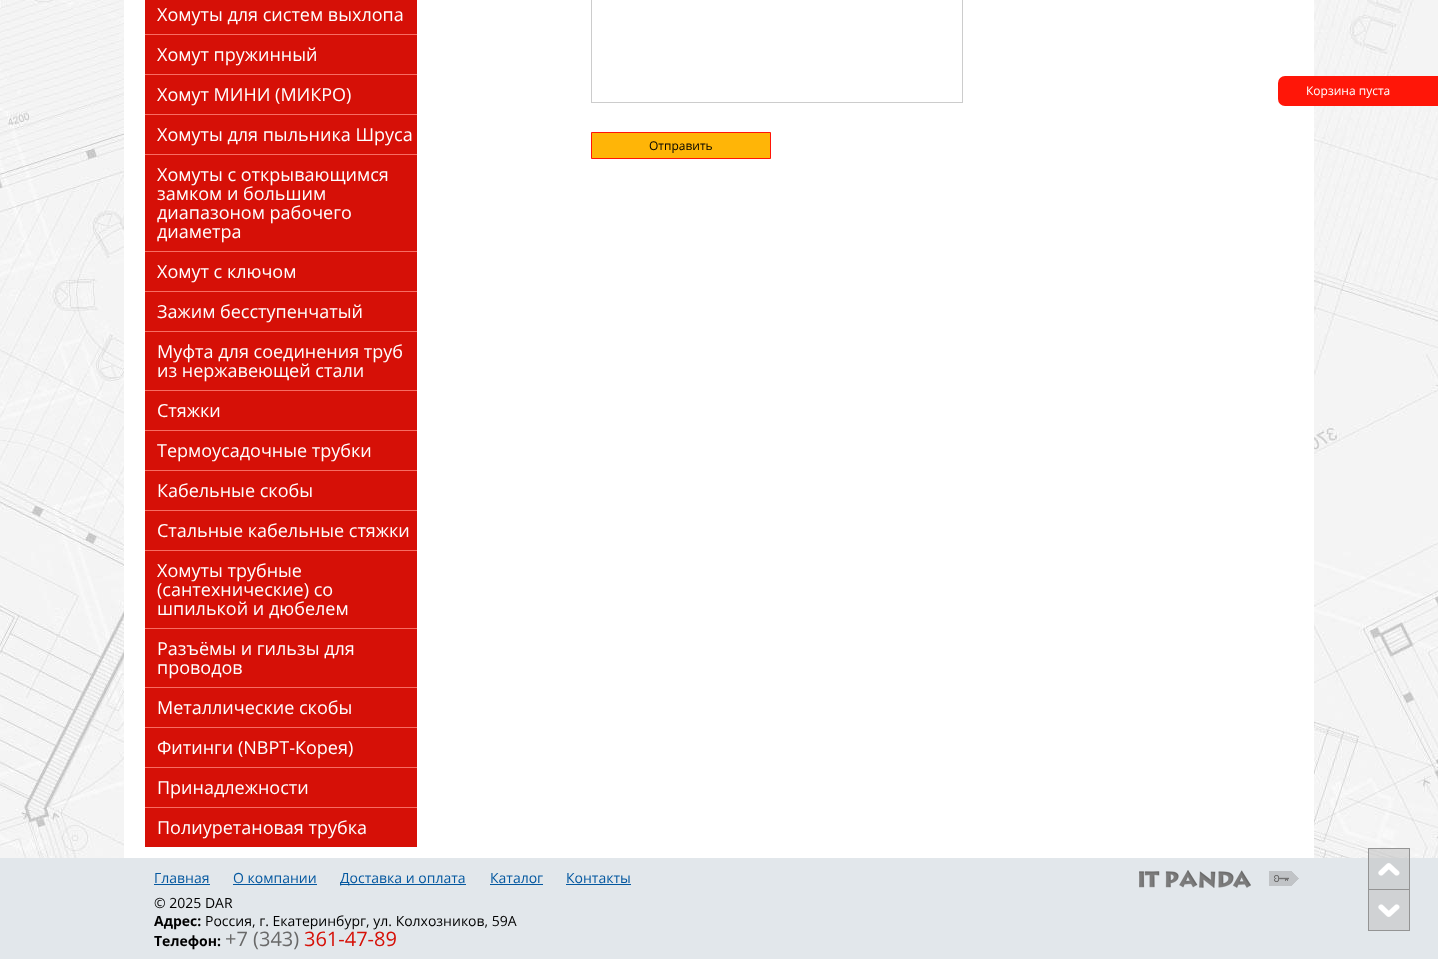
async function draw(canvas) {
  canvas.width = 1438
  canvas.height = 959
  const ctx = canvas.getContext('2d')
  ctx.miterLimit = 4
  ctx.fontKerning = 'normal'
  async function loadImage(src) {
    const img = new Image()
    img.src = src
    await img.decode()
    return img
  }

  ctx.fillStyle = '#fff'
  ctx.fillRect(0, 0, 1438, 959)
  ctx.drawImage(await loadImage('image0.png'), 0, 0, 1438, 858)
  ctx.fillRect(124, 0, 1190, 858)
  ctx.fillStyle = '#f76d63'
  ctx.fillRect(145, 34, 272, 774)
  ctx.fillStyle = '#d61007'
  ctx.fillRect(145, 0, 272, 34)
  ctx.font = '18px Open Sans'
  ctx.fillStyle = '#fff'
  ctx.fillText('Хомуты для систем выхлопа', 157, 21)
  ctx.fillStyle = '#d61007'
  ctx.fillRect(145, 35, 272, 39)
  ctx.fillStyle = '#fff'
  ctx.fillText('Хомут пружинный', 157, 61)
  ctx.fillStyle = '#d61007'
  ctx.fillRect(145, 75, 272, 39)
  ctx.fillStyle = '#fff'
  ctx.fillText('Хомут МИНИ (МИКРО)', 157, 101)
  ctx.fillStyle = '#d61007'
  ctx.fillRect(145, 115, 272, 39)
  ctx.fillStyle = '#fff'
  ctx.fillText('Хомуты для пыльника Шруса', 157, 141)
  ctx.fillStyle = '#d61007'
  ctx.fillRect(145, 155, 272, 96)
  ctx.fillStyle = '#fff'
  ctx.fillText('Хомуты с открывающимся', 157, 181)
  ctx.fillText('замком и большим', 157, 200)
  ctx.fillText('диапазоном рабочего', 157, 219)
  ctx.fillText('диаметра', 157, 238)
  ctx.fillStyle = '#d61007'
  ctx.fillRect(145, 252, 272, 39)
  ctx.fillStyle = '#fff'
  ctx.fillText('Хомут с ключом', 157, 278)
  ctx.fillStyle = '#d61007'
  ctx.fillRect(145, 292, 272, 39)
  ctx.fillStyle = '#fff'
  ctx.fillText('Зажим бесступенчатый', 157, 318)
  ctx.fillStyle = '#d61007'
  ctx.fillRect(145, 332, 272, 58)
  ctx.fillStyle = '#fff'
  ctx.fillText('Муфта для соединения труб', 157, 358)
  ctx.fillText('из нержавеющей стали', 157, 377)
  ctx.fillStyle = '#d61007'
  ctx.fillRect(145, 391, 272, 39)
  ctx.fillStyle = '#fff'
  ctx.fillText('Стяжки', 157, 417)
  ctx.fillStyle = '#d61007'
  ctx.fillRect(145, 431, 272, 39)
  ctx.fillStyle = '#fff'
  ctx.fillText('Термоусадочные трубки', 157, 457)
  ctx.fillStyle = '#d61007'
  ctx.fillRect(145, 471, 272, 39)
  ctx.fillStyle = '#fff'
  ctx.fillText('Кабельные скобы', 157, 497)
  ctx.fillStyle = '#d61007'
  ctx.fillRect(145, 511, 272, 39)
  ctx.fillStyle = '#fff'
  ctx.fillText('Стальные кабельные стяжки', 157, 537)
  ctx.fillStyle = '#d61007'
  ctx.fillRect(145, 551, 272, 77)
  ctx.fillStyle = '#fff'
  ctx.fillText('Хомуты трубные', 157, 577)
  ctx.fillText('(сантехнические) со', 157, 596)
  ctx.fillText('шпилькой и дюбелем', 157, 615)
  ctx.fillStyle = '#d61007'
  ctx.fillRect(145, 629, 272, 58)
  ctx.fillStyle = '#fff'
  ctx.fillText('Разъёмы и гильзы для', 157, 655)
  ctx.fillText('проводов', 157, 674)
  ctx.fillStyle = '#d61007'
  ctx.fillRect(145, 688, 272, 39)
  ctx.fillStyle = '#fff'
  ctx.fillText('Металлические скобы', 157, 714)
  ctx.fillStyle = '#d61007'
  ctx.fillRect(145, 728, 272, 39)
  ctx.fillStyle = '#fff'
  ctx.fillText('Фитинги (NBPT-Корея)', 157, 754)
  ctx.fillStyle = '#d61007'
  ctx.fillRect(145, 768, 272, 39)
  ctx.fillStyle = '#fff'
  ctx.fillText('Принадлежности', 157, 794)
  ctx.fillStyle = '#d61007'
  ctx.fillRect(145, 808, 272, 39)
  ctx.fillStyle = '#fff'
  ctx.fillText('Полиуретановая трубка', 157, 834)
  ctx.fillStyle = '#ff1608'
  ctx.beginPath()
  ctx.roundRect(1278, 76, 160, 30, [7, 0, 0, 7])
  ctx.fill()
  ctx.font = '12px Open Sans'
  ctx.fillStyle = '#fff'
  ctx.fillText('Корзина пуста', 1306, 95)
  ctx.strokeStyle = '#ccc'
  ctx.strokeRect(591.5, -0.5, 371, 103)
  ctx.fillStyle = '#ffb507'
  ctx.beginPath()
  ctx.rect(591.5, 132.5, 179, 26)
  ctx.fill()
  ctx.strokeStyle = '#ff1509'
  ctx.stroke()
  ctx.fillStyle = '#000'
  ctx.fillText('Отправить', 649, 150)
  ctx.fillStyle = '#e2e7eb'
  ctx.fillRect(0, 858, 1438, 101)
  ctx.font = '14px Open Sans'
  ctx.fillStyle = '#0458a0'
  ctx.fillText('Главная', 154, 883)
  ctx.fillRect(154, 884, 56, 1)
  ctx.fillText('О компании', 233, 883)
  ctx.fillRect(233, 884, 84, 1)
  ctx.fillRect(340, 884, 126, 1)
  ctx.fillText('Доставка и оплата', 340, 883)
  ctx.fillText('Каталог', 490, 883)
  ctx.fillRect(490, 884, 53, 1)
  ctx.fillText('Контакты', 566, 883)
  ctx.fillRect(566, 884, 65, 1)
  ctx.drawImage(await loadImage('image1.png'), 1139, 870, 112, 18)
  ctx.drawImage(await loadImage('image2.png'), 1269, 871, 30, 15)
  ctx.fillStyle = '#000'
  ctx.fillText('© 2025 DAR', 154, 908)
  ctx.font = 'bold 14px Open Sans'
  ctx.fillText('Адрес:', 154, 926)
  ctx.font = '14px Open Sans'
  ctx.fillText('Россия, г. Екатеринбург, ул. Колхозников, 59А', 205, 926)
  ctx.font = 'bold 14px Open Sans'
  ctx.fillText('Телефон:', 154, 946)
  ctx.font = '20px Open Sans'
  ctx.fillStyle = '#696969'
  ctx.fillText('+7 (343)', 225, 946)
  ctx.fillStyle = '#d61007'
  ctx.fillText('361-47-89', 304, 946)
  ctx.drawImage(await loadImage('image3.png'), 1369, 849, 40, 40)
  ctx.strokeStyle = '#949494'
  ctx.strokeRect(1368.5, 848.5, 41, 41)
  ctx.drawImage(await loadImage('image4.png'), 1369, 890, 40, 40)
  ctx.strokeRect(1368.5, 889.5, 41, 41)
}

draw(document.querySelector('canvas'))
